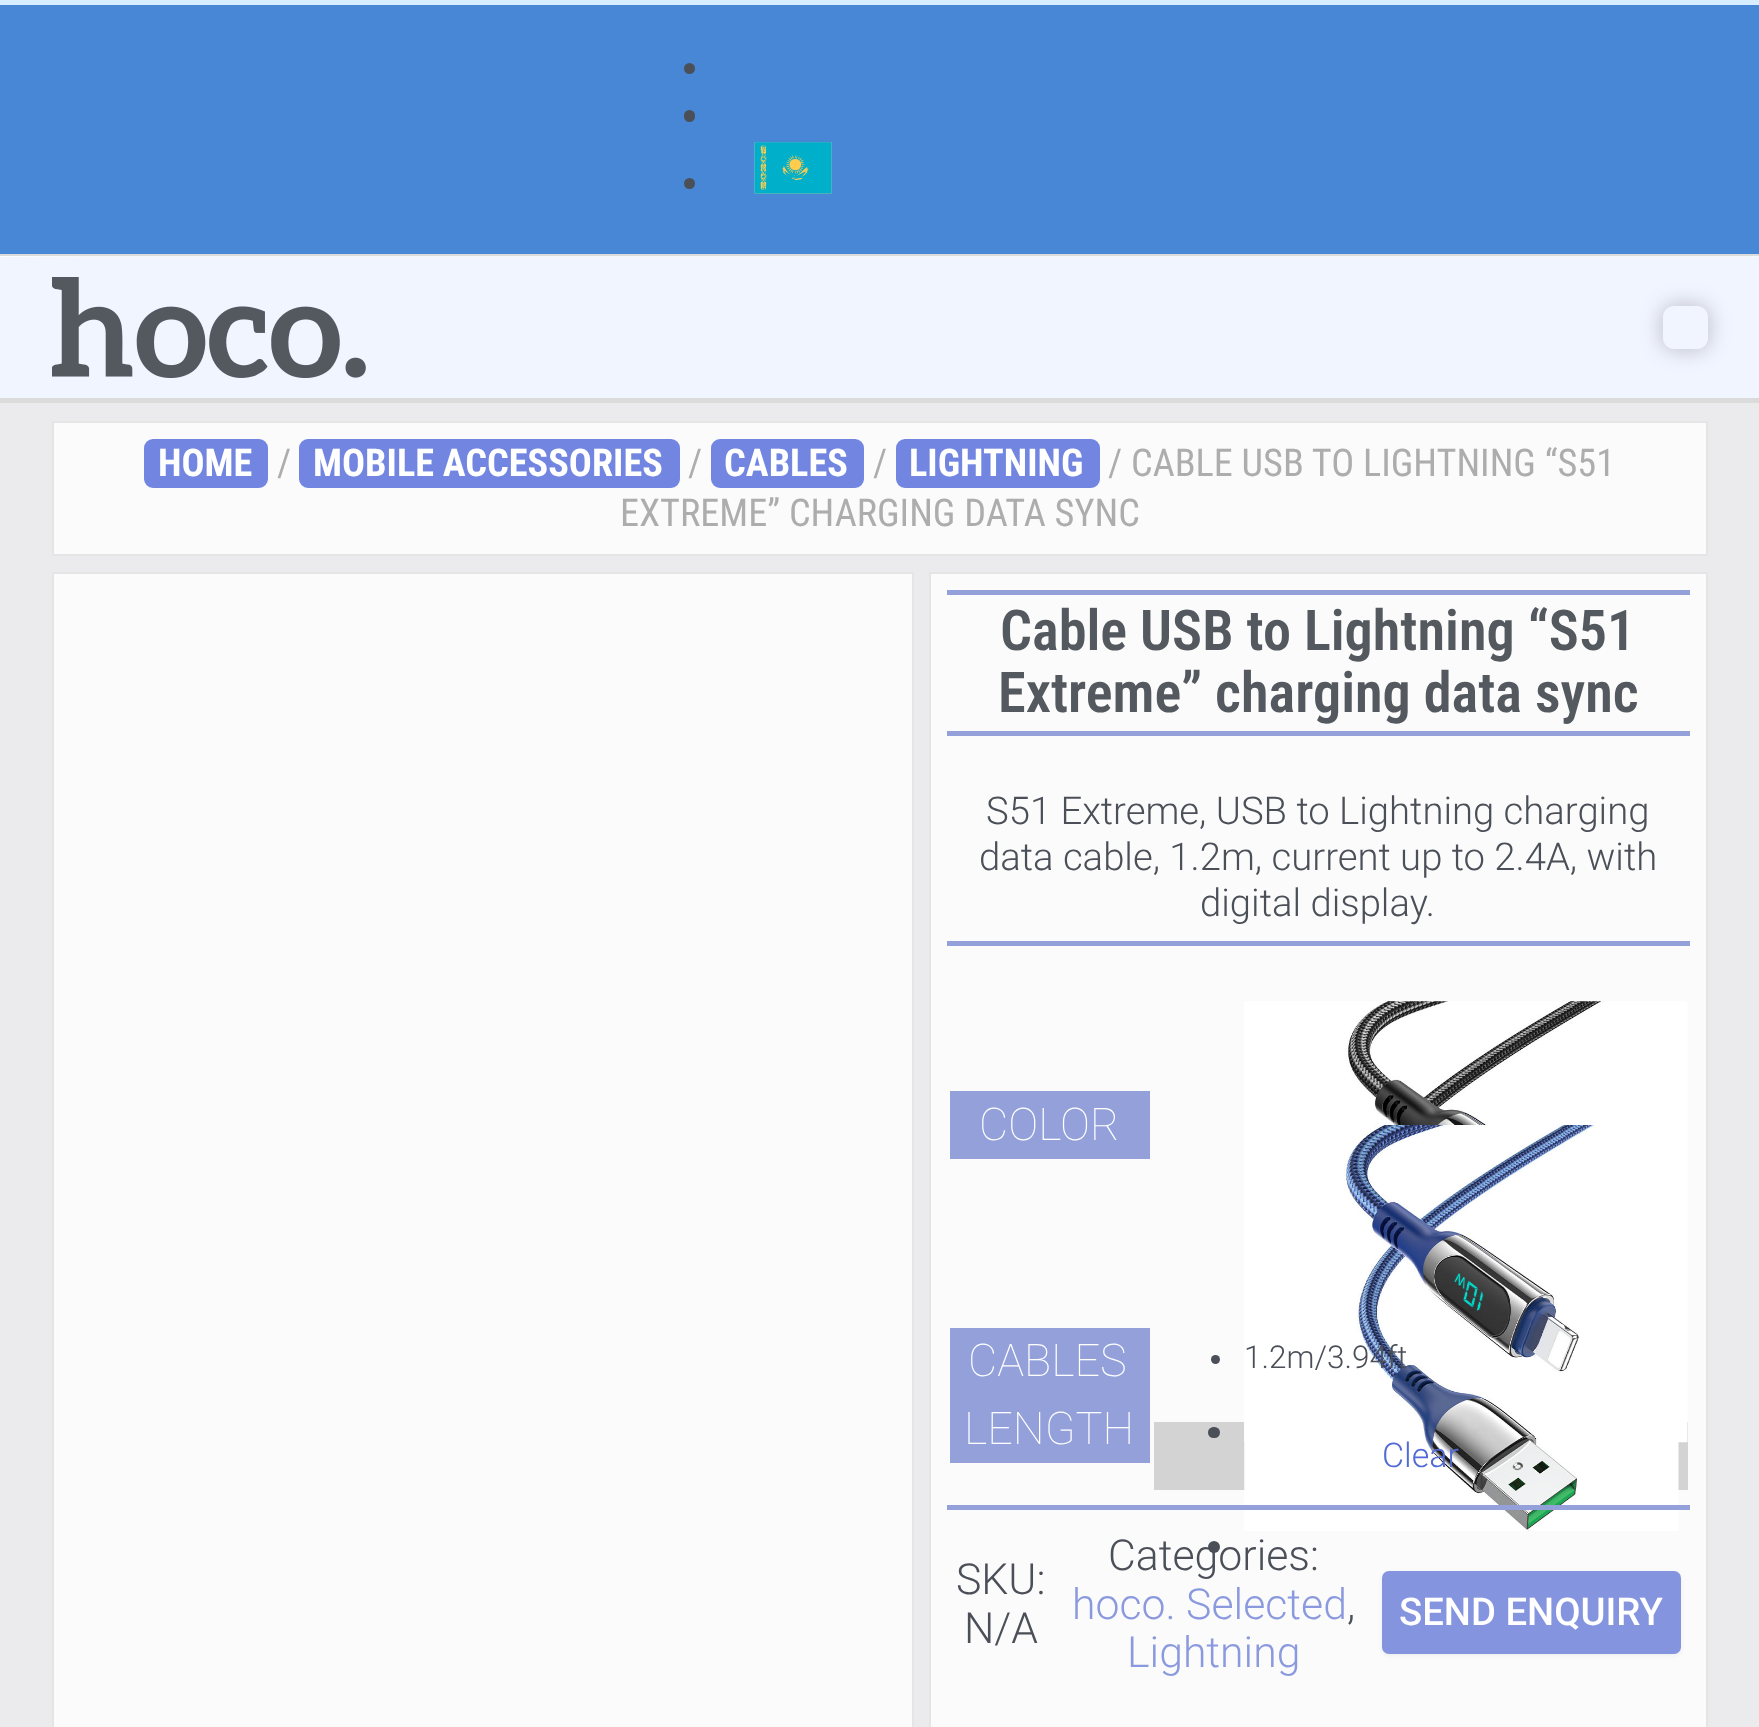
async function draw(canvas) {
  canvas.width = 1759
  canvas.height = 1727
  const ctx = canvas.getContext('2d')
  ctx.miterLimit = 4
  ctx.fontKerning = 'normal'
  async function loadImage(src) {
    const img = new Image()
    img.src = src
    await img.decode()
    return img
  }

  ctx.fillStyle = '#fff'
  ctx.fillRect(0, 0, 1759, 1727)
  ctx.fillStyle = '#0000000a'
  ctx.filter = 'blur(34px)'
  ctx.beginPath()
  ctx.rect(23, 23, 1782, 276)
  ctx.fill()
  ctx.filter = 'none'
  ctx.fillStyle = '#4887d6'
  ctx.fillRect(0, 5, 1759, 249)
  ctx.fillStyle = '#d7eeff'
  ctx.fillRect(0, 0, 1759, 5)
  ctx.fillStyle = '#4b4f58'
  ctx.beginPath()
  ctx.arc(689.5, 68.5, 5.5, 0, 2 * Math.PI)
  ctx.fill()
  ctx.beginPath()
  ctx.roundRect(684, 110, 11, 12, 5.5)
  ctx.fill()
  ctx.beginPath()
  ctx.arc(689.5, 183.5, 5.5, 0, 2 * Math.PI)
  ctx.fill()
  ctx.drawImage(await loadImage('image0.png'), 754, 142, 78, 52)
  ctx.fillStyle = '#f1f5ff'
  ctx.fillRect(0, 257, 1759, 141)
  ctx.fillStyle = '#dbdbdb'
  ctx.fillRect(0, 254, 1759, 2)
  ctx.fillRect(0, 398, 1759, 5)
  ctx.drawImage(await loadImage('image1.png'), 52, 277, 314, 101)
  ctx.save()
  ctx.beginPath()
  ctx.moveTo(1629, 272)
  ctx.lineTo(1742, 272)
  ctx.lineTo(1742, 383)
  ctx.lineTo(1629, 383)
  ctx.closePath()
  ctx.moveTo(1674, 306)
  ctx.lineTo(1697, 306)
  ctx.bezierCurveTo(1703, 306, 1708, 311, 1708, 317)
  ctx.lineTo(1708, 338)
  ctx.bezierCurveTo(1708, 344, 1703, 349, 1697, 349)
  ctx.lineTo(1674, 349)
  ctx.bezierCurveTo(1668, 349, 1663, 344, 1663, 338)
  ctx.lineTo(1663, 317)
  ctx.bezierCurveTo(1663, 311, 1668, 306, 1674, 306)
  ctx.closePath()
  ctx.clip('evenodd')
  ctx.fillStyle = '#0000003d'
  ctx.filter = 'blur(11px)'
  ctx.beginPath()
  ctx.roundRect(1663, 306, 45, 43, 11)
  ctx.fill()
  ctx.filter = 'none'
  ctx.restore()
  ctx.fillStyle = '#ebebee'
  ctx.fillRect(0, 403, 1759, 1324)
  ctx.fillStyle = '#fbfbfb'
  ctx.beginPath()
  ctx.rect(53, 422, 1654, 133)
  ctx.fill()
  ctx.strokeStyle = '#e5e5e5'
  ctx.lineWidth = 2
  ctx.stroke()
  ctx.fillStyle = '#7286e1'
  ctx.beginPath()
  ctx.roundRect(145, 440, 122, 47, 8)
  ctx.fill()
  ctx.strokeStyle = '#7286e1'
  ctx.stroke()
  ctx.font = 'bold 38.25px Roboto Condensed'
  ctx.fillStyle = '#fff'
  ctx.fillText('HOME', 158, 476)
  ctx.font = '38.25px Roboto Condensed'
  ctx.fillStyle = '#adadad'
  ctx.fillText('/', 277, 476)
  ctx.fillStyle = '#7286e1'
  ctx.beginPath()
  ctx.roundRect(300, 440, 379, 47, 8)
  ctx.fill()
  ctx.stroke()
  ctx.font = 'bold 38.25px Roboto Condensed'
  ctx.fillStyle = '#fff'
  ctx.fillText('MOBILE ACCESSORIES', 313, 476)
  ctx.font = '38.25px Roboto Condensed'
  ctx.fillStyle = '#adadad'
  ctx.fillText('/', 688, 476)
  ctx.fillStyle = '#7286e1'
  ctx.beginPath()
  ctx.roundRect(712, 440, 151, 47, 8)
  ctx.fill()
  ctx.stroke()
  ctx.font = 'bold 38.25px Roboto Condensed'
  ctx.fillStyle = '#fff'
  ctx.fillText('СABLES', 724, 476)
  ctx.font = '38.25px Roboto Condensed'
  ctx.fillStyle = '#adadad'
  ctx.fillText('/', 873, 476)
  ctx.fillStyle = '#7286e1'
  ctx.beginPath()
  ctx.roundRect(897, 440, 202, 47, 8)
  ctx.fill()
  ctx.stroke()
  ctx.font = 'bold 38.25px Roboto Condensed'
  ctx.fillStyle = '#fff'
  ctx.fillText('LIGHTNING', 909, 476)
  ctx.font = '38.25px Roboto Condensed'
  ctx.fillStyle = '#adadad'
  ctx.fillText('/ CABLE USB TO LIGHTNING “S51', 1108, 476)
  ctx.fillText('EXTREME” CHARGING DATA SYNC', 620, 526)
  ctx.fillStyle = '#fbfbfb'
  ctx.beginPath()
  ctx.rect(53, 573, 860, 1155)
  ctx.fill()
  ctx.strokeStyle = '#e5e5e5'
  ctx.stroke()
  ctx.beginPath()
  ctx.rect(930, 573, 777, 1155)
  ctx.fill()
  ctx.stroke()
  ctx.fillStyle = '#93a0da'
  ctx.fillRect(947, 590, 743, 5)
  ctx.fillRect(947, 731, 743, 5)
  ctx.font = '600 56.25px Roboto Condensed'
  ctx.fillStyle = '#54595f'
  ctx.fillText('Cable USB to Lightning “S51', 1000, 650)
  ctx.fillText('Extreme” charging data sync', 998, 712)
  ctx.font = '300 38.25px Roboto'
  ctx.fillStyle = '#4b4f58'
  ctx.fillText('S51 Extreme, USB to Lightning charging', 986, 824)
  ctx.fillText('data cable, 1.2m, current up to 2.4A, with', 979, 870)
  ctx.fillText('digital display.', 1200, 916)
  ctx.fillStyle = '#93a0da'
  ctx.fillRect(947, 941, 743, 5)
  ctx.fillRect(950, 1091, 200, 68)
  ctx.font = '100 45px Roboto'
  ctx.fillStyle = '#fff'
  ctx.fillText('СOLOR', 979, 1140)
  ctx.fillStyle = '#d3d3d3'
  ctx.fillRect(1154, 1422, 534, 68)
  ctx.fillStyle = '#4b4f58'
  ctx.beginPath()
  ctx.roundRect(1208, 1427, 12, 11, 5.5)
  ctx.fill()
  ctx.drawImage(await loadImage('image2.png'), 1244, 1001, 444, 442)
  ctx.drawImage(await loadImage('image3.png'), 1244, 1125, 435, 406)
  ctx.beginPath()
  ctx.arc(1214, 1547, 6, 0, 2 * Math.PI)
  ctx.fill()
  ctx.fillStyle = '#93a0da'
  ctx.fillRect(950, 1328, 200, 135)
  ctx.fillStyle = '#fff'
  ctx.fillText('CABLES', 968, 1376)
  ctx.fillText('LENGTH', 964, 1444)
  ctx.fillStyle = '#4b4f58'
  ctx.beginPath()
  ctx.arc(1215.5, 1359.5, 4.5, 0, 2 * Math.PI)
  ctx.fill()
  ctx.font = '300 31.5px Roboto'
  ctx.fillText('1.2m/3.94ft', 1244, 1368)
  ctx.font = '300 34px Roboto'
  ctx.fillStyle = '#526ad5'
  ctx.fillText('Clear', 1382, 1467)
  ctx.fillStyle = '#93a0da'
  ctx.fillRect(947, 1505, 743, 5)
  ctx.font = '300 42.75px Roboto'
  ctx.fillStyle = '#4b4f58'
  ctx.fillText('SKU:', 956, 1594)
  ctx.fillText('N/A', 964, 1643)
  ctx.fillText('Categories:', 1108, 1570)
  ctx.fillStyle = '#8b9ade'
  ctx.fillText('hoco. Selected', 1072, 1619)
  ctx.fillStyle = '#4b4f58'
  ctx.fillText(',', 1347, 1619)
  ctx.fillStyle = '#8b9ade'
  ctx.fillText('Lightning', 1127, 1667)
  ctx.fillStyle = '#0000000d'
  ctx.filter = 'blur(2px)'
  ctx.beginPath()
  ctx.roundRect(1382, 1573, 299, 83, 7)
  ctx.fill()
  ctx.filter = 'none'
  ctx.fillStyle = '#8494de'
  ctx.beginPath()
  ctx.roundRect(1382, 1571, 299, 83, 7)
  ctx.fill()
  ctx.font = '500 38.25px Roboto'
  ctx.fillStyle = '#fff'
  ctx.fillText('SEND ENQUIRY', 1399, 1625)
}

draw(document.querySelector('canvas'))
